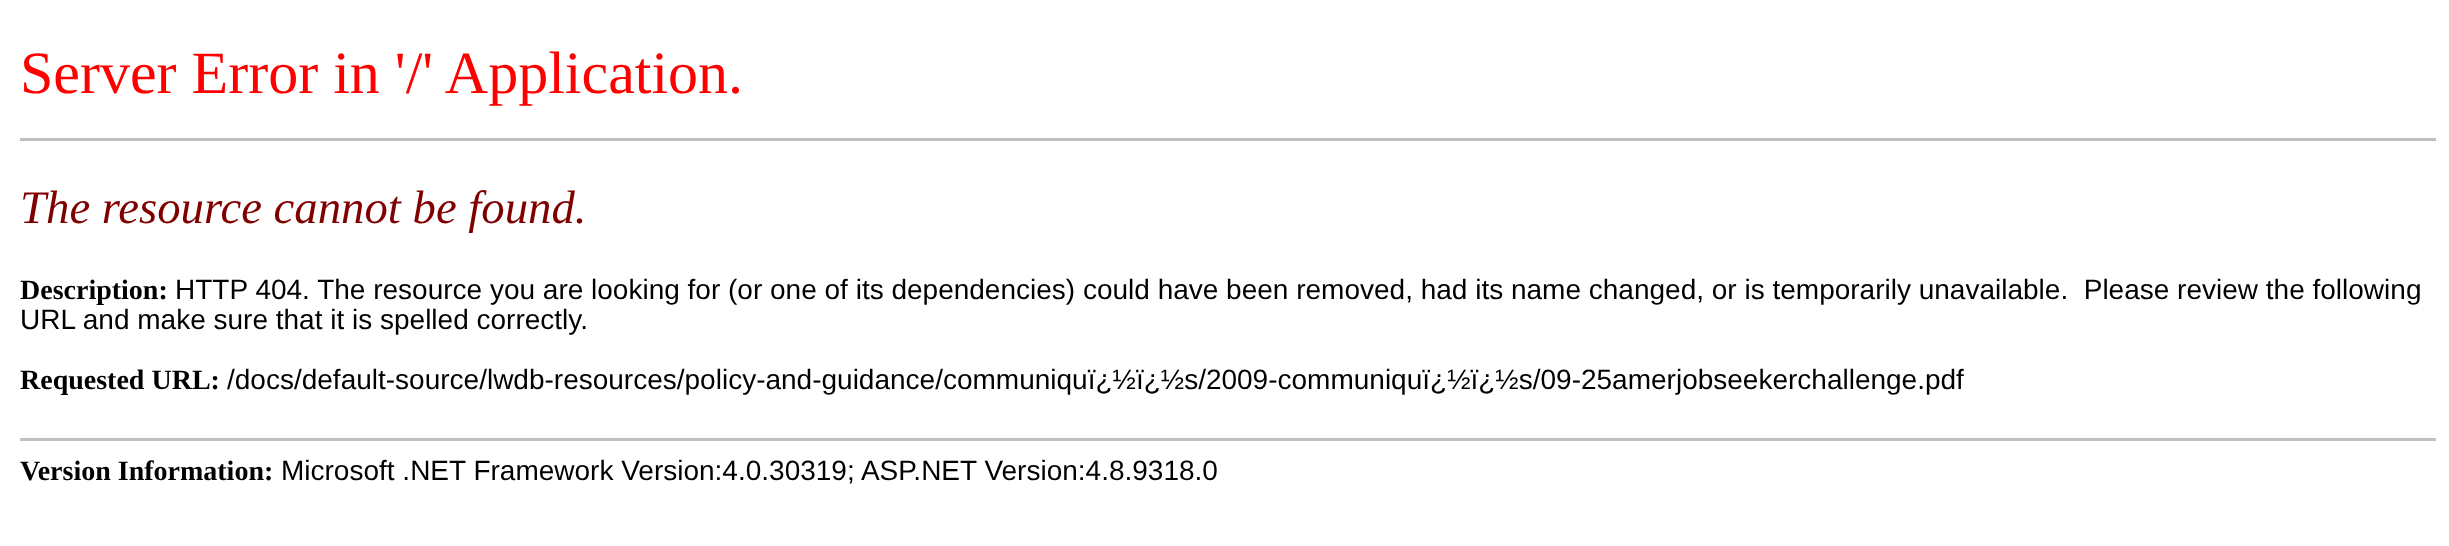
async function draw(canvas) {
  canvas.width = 2449
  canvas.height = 546
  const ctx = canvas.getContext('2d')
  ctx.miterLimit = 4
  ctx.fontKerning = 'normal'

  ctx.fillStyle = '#fff'
  ctx.fillRect(0, 0, 2449, 546)
  ctx.font = '60px Liberation Serif'
  ctx.fillStyle = '#f00'
  ctx.fillText('Server Error in \'/\' Application.', 20, 93)
  ctx.fillStyle = '#c0c0c0'
  ctx.fillRect(20, 138, 2416, 3)
  ctx.font = 'italic 46.75px Liberation Serif'
  ctx.fillStyle = '#800000'
  ctx.fillText('The resource cannot be found.', 20, 223)
  ctx.font = 'bold 28px Liberation Serif'
  ctx.fillStyle = '#000'
  ctx.fillText('Description:', 20, 299)
  ctx.font = '28px Liberation Sans'
  ctx.fillText('HTTP 404. The resource you are looking for (or one of its dependencies) could have been removed, had its name changed, or is temporarily unavailable.  Please review the following', 175, 299)
  ctx.fillText('URL and make sure that it is spelled correctly.', 20, 329)
  ctx.font = 'bold 28px Liberation Serif'
  ctx.fillText('Requested URL:', 20, 389)
  ctx.font = '28px Liberation Sans'
  ctx.fillText('/docs/default-source/lwdb-resources/policy-and-guidance/communiquï¿½ï¿½s/2009-communiquï¿½ï¿½s/09-25amerjobseekerchallenge.pdf', 227, 389)
  ctx.fillStyle = '#c0c0c0'
  ctx.fillRect(20, 438, 2416, 3)
  ctx.font = 'bold 28px Liberation Serif'
  ctx.fillStyle = '#000'
  ctx.fillText('Version Information:', 20, 480)
  ctx.font = '28px Liberation Sans'
  ctx.fillText('Microsoft .NET Framework Version:4.0.30319; ASP.NET Version:4.8.9318.0', 281, 480)
}

draw(document.querySelector('canvas'))
